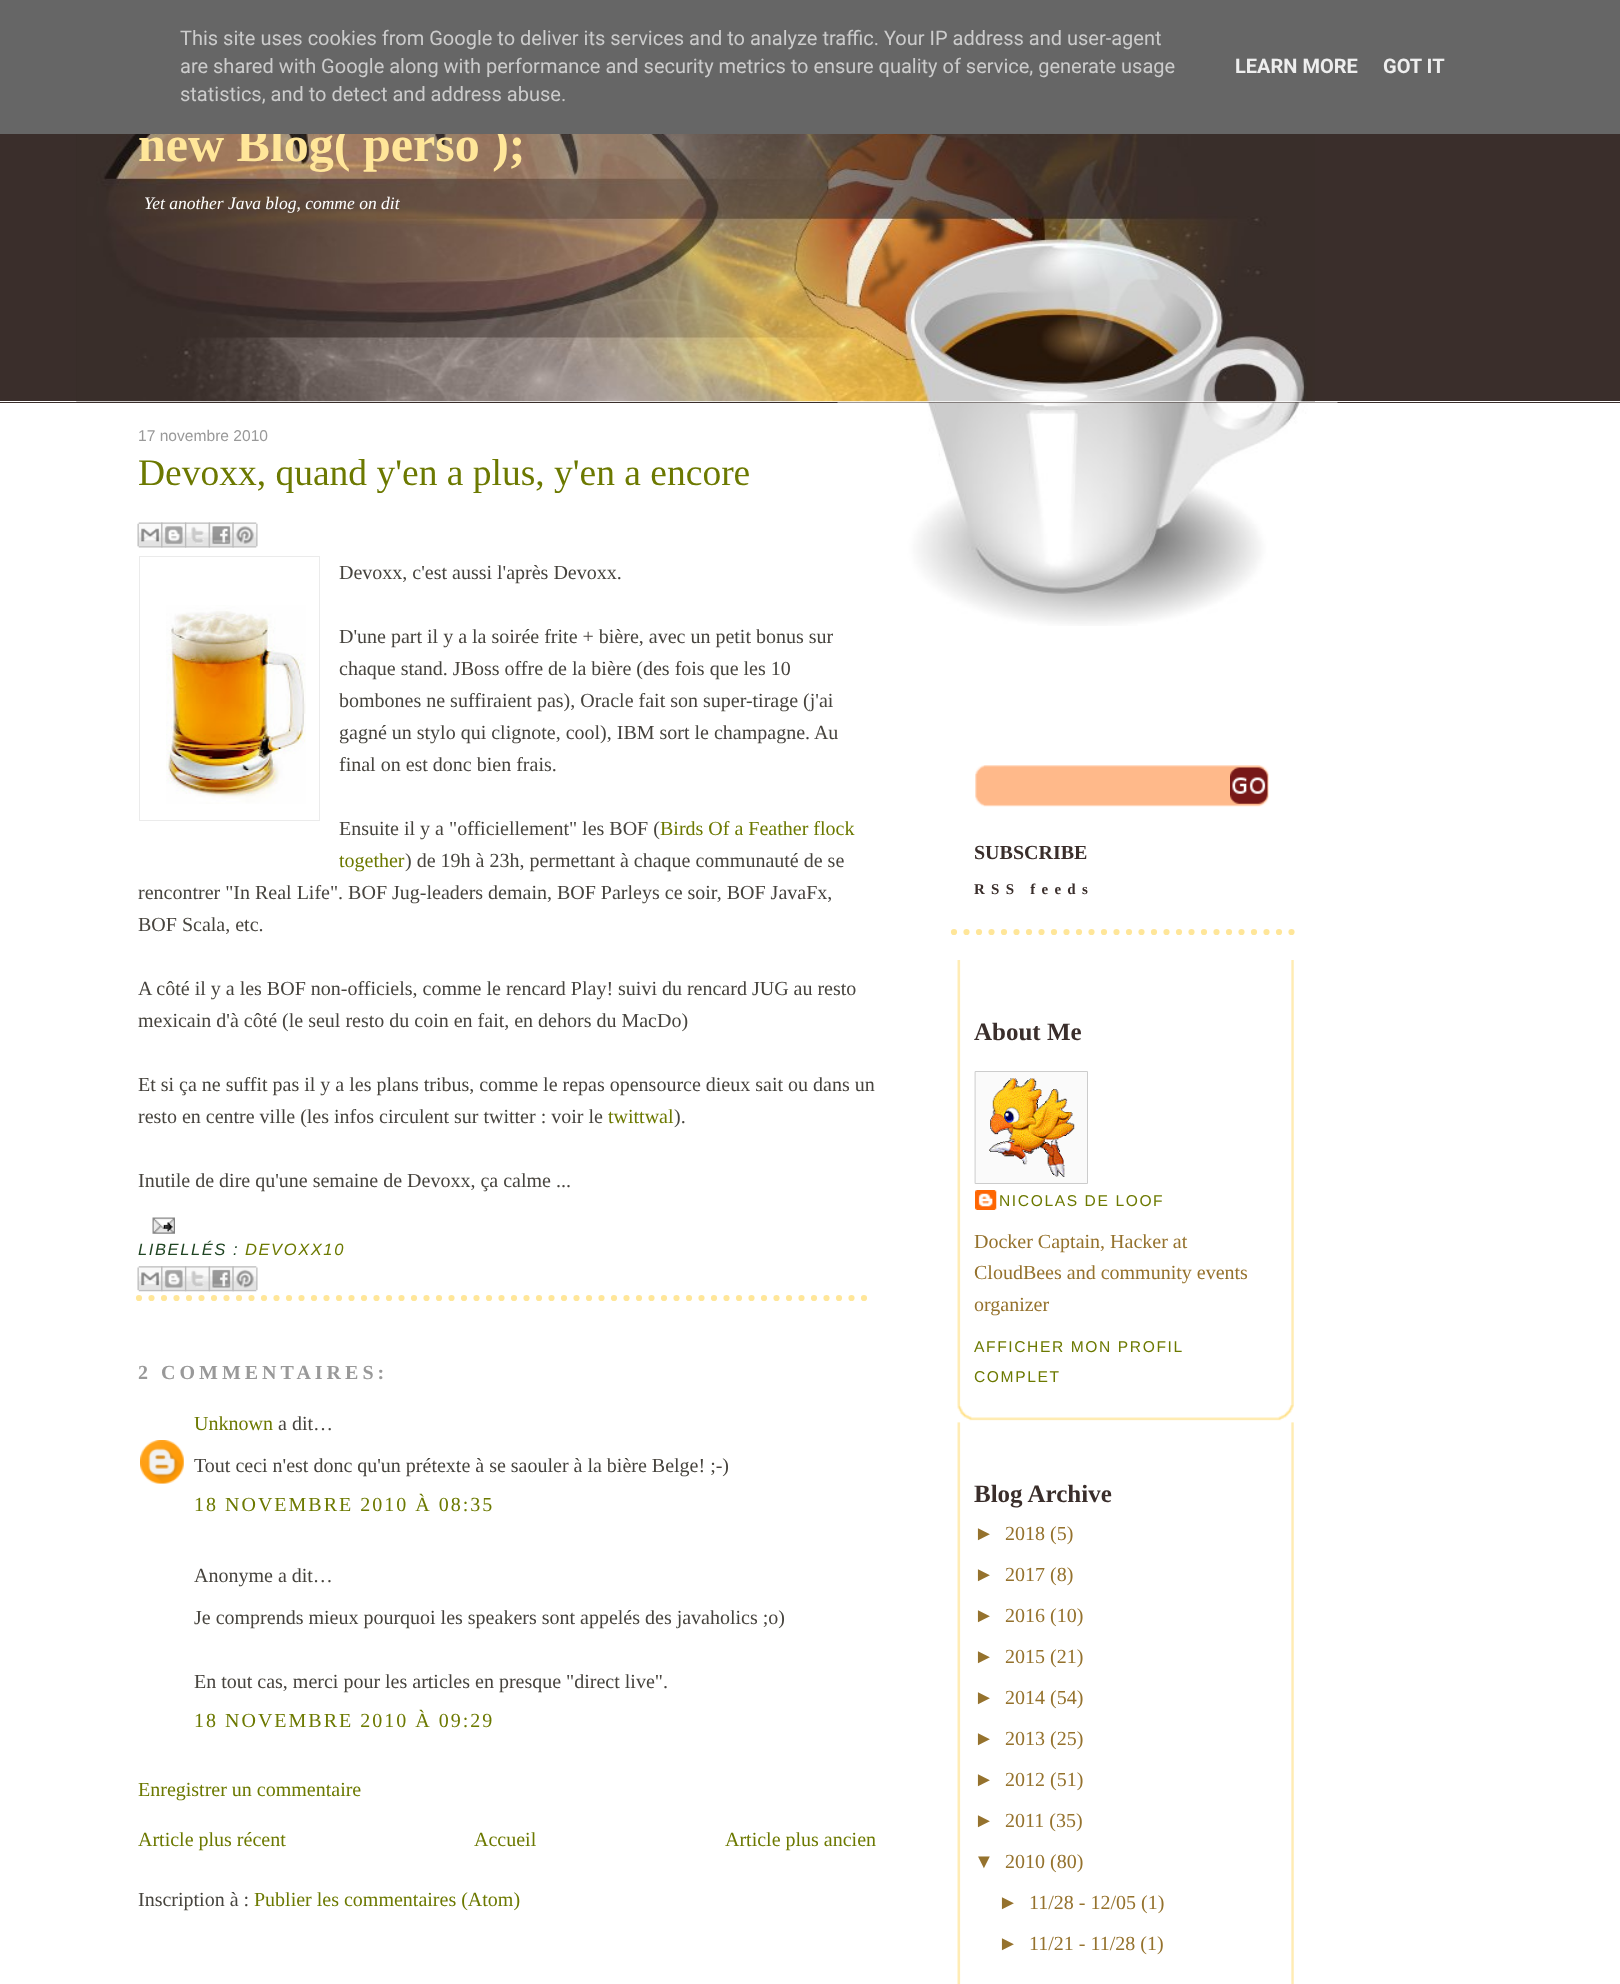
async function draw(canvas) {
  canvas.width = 1620
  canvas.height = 1984
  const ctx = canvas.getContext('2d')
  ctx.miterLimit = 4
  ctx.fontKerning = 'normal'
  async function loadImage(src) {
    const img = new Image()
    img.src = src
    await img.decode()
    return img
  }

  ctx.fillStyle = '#3a2e2b'
  ctx.fillRect(0, 0, 1620, 1984)
  ctx.fillStyle = '#fff'
  ctx.fillRect(0, 401, 1620, 1)
  ctx.drawImage(await loadImage('image0.png'), 76, 134, 1239, 268)
  ctx.font = 'bold 50px Liberation Serif'
  ctx.fillStyle = '#ffe699'
  ctx.fillText('new Blog( perso );', 138, 161)
  ctx.fillStyle = '#666'
  ctx.fillRect(0, 0, 1620, 134)
  ctx.font = '20px Roboto'
  ctx.fillStyle = '#ccc'
  ctx.fillText('This site uses cookies from Google to deliver its services and to analyze traffic. Your IP address and user-agent', 180, 45)
  ctx.fillText('are shared with Google along with performance and security metrics to ensure quality of service, generate usage', 180, 73)
  ctx.fillText('statistics, and to detect and address abuse.', 180, 101)
  ctx.font = 'bold 20px Roboto'
  ctx.fillStyle = '#eee'
  ctx.fillText('LEARN MORE', 1235, 73)
  ctx.fillText('GOT IT', 1383, 73)
  ctx.font = 'italic 17.5px Liberation Serif'
  ctx.fillStyle = '#fff'
  ctx.fillText('Yet another Java blog, comme on dit', 144, 209)
  ctx.fillRect(0, 403, 1620, 1581)
  ctx.drawImage(await loadImage('image1.png'), 837, 402, 501, 224)
  ctx.font = '15.6px Liberation Sans'
  ctx.fillStyle = '#999'
  ctx.fillText('17 novembre 2010', 138, 441)
  ctx.font = '37.5px Liberation Serif'
  ctx.fillStyle = '#6c7900'
  ctx.fillText('Devoxx, quand y\'en a plus, y\'en a encore', 138, 485)
  ctx.drawImage(await loadImage('image2.png'), 137, 522, 26, 26)
  ctx.drawImage(await loadImage('image3.png'), 161, 522, 26, 26)
  ctx.drawImage(await loadImage('image4.png'), 185, 522, 25, 26)
  ctx.drawImage(await loadImage('image5.png'), 208, 522, 26, 26)
  ctx.drawImage(await loadImage('image6.png'), 232, 522, 26, 26)
  ctx.strokeStyle = '#ebebeb'
  ctx.strokeRect(139.5, 556.5, 180, 264)
  ctx.drawImage(await loadImage('image7.png'), 166, 605, 140, 199)
  ctx.font = '20px Liberation Serif'
  ctx.fillStyle = '#47443e'
  ctx.fillText('Devoxx, c\'est aussi l\'après Devoxx.', 339, 579)
  ctx.fillText('D\'une part il y a la soirée frite + bière, avec un petit bonus sur', 339, 643)
  ctx.fillText('chaque stand. JBoss offre de la bière (des fois que les 10', 339, 675)
  ctx.fillText('bombones ne suffiraient pas), Oracle fait son super-tirage (j\'ai', 339, 707)
  ctx.fillText('gagné un stylo qui clignote, cool), IBM sort le champagne. Au', 339, 739)
  ctx.fillText('final on est donc bien frais.', 339, 771)
  ctx.fillText('Ensuite il y a "officiellement" les BOF (', 339, 835)
  ctx.fillStyle = '#6c7900'
  ctx.fillText('Birds Of a Feather flock', 660, 835)
  ctx.fillText('together', 339, 867)
  ctx.fillStyle = '#47443e'
  ctx.fillText(') de 19h à 23h, permettant à chaque communauté de se', 405, 867)
  ctx.fillText('rencontrer "In Real Life". BOF Jug-leaders demain, BOF Parleys ce soir, BOF JavaFx,', 138, 899)
  ctx.fillText('BOF Scala, etc.', 138, 931)
  ctx.fillText('A côté il y a les BOF non-officiels, comme le rencard Play! suivi du rencard JUG au resto', 138, 995)
  ctx.fillText('mexicain d\'à côté (le seul resto du coin en fait, en dehors du MacDo)', 138, 1027)
  ctx.fillText('Et si ça ne suffit pas il y a les plans tribus, comme le repas opensource dieux sait ou dans un', 138, 1091)
  ctx.fillText('resto en centre ville (les infos circulent sur twitter : voir le', 138, 1123)
  ctx.fillStyle = '#6c7900'
  ctx.fillText('twittwal', 608, 1123)
  ctx.fillStyle = '#47443e'
  ctx.fillText(').', 674, 1123)
  ctx.fillText('Inutile de dire qu\'une semaine de Devoxx, ça calme ...', 138, 1187)
  ctx.beginPath()
  ctx.moveTo(139, 1298)
  ctx.lineTo(876, 1298)
  ctx.strokeStyle = '#ffe699'
  ctx.lineWidth = 6.2
  ctx.lineCap = 'round'
  ctx.setLineDash([0, 12.5])
  ctx.stroke()
  ctx.drawImage(await loadImage('image8.png'), 152, 1217, 23, 17)
  ctx.letterSpacing = '1.6px'
  ctx.font = 'italic 16.5px Liberation Sans'
  ctx.fillStyle = '#204523'
  ctx.fillText('LIBELLÉS :', 138, 1255)
  ctx.fillStyle = '#6c7900'
  ctx.fillText('DEVOXX10', 245, 1255)
  ctx.drawImage(await loadImage('image9.png'), 137, 1266, 26, 26)
  ctx.drawImage(await loadImage('image10.png'), 161, 1266, 26, 26)
  ctx.drawImage(await loadImage('image11.png'), 185, 1266, 25, 26)
  ctx.drawImage(await loadImage('image12.png'), 208, 1266, 26, 26)
  ctx.drawImage(await loadImage('image13.png'), 232, 1266, 26, 26)
  ctx.letterSpacing = '4px'
  ctx.font = 'bold 20px Liberation Serif'
  ctx.fillStyle = '#999'
  ctx.fillText('2 COMMENTAIRES:', 138, 1379)
  ctx.letterSpacing = '0px'
  ctx.font = '20px Liberation Serif'
  ctx.fillStyle = '#6c7900'
  ctx.fillText('Unknown', 194, 1430)
  ctx.fillStyle = '#47443e'
  ctx.fillText('a dit…', 278, 1430)
  ctx.drawImage(await loadImage('image14.png'), 140, 1440, 44, 44)
  ctx.fillText('Tout ceci n\'est donc qu\'un prétexte à se saouler à la bière Belge! ;-)', 194, 1472)
  ctx.letterSpacing = '2px'
  ctx.fillStyle = '#6c7900'
  ctx.fillText('18 NOVEMBRE 2010 À 08:35', 194, 1511)
  ctx.letterSpacing = '0px'
  ctx.fillStyle = '#47443e'
  ctx.fillText('Anonyme a dit…', 194, 1582)
  ctx.fillText('Je comprends mieux pourquoi les speakers sont appelés des javaholics ;o)', 194, 1624)
  ctx.fillText('En tout cas, merci pour les articles en presque "direct live".', 194, 1688)
  ctx.letterSpacing = '2px'
  ctx.fillStyle = '#6c7900'
  ctx.fillText('18 NOVEMBRE 2010 À 09:29', 194, 1727)
  ctx.letterSpacing = '0px'
  ctx.fillText('Enregistrer un commentaire', 138, 1796)
  ctx.fillText('Article plus récent', 138, 1846)
  ctx.fillText('Accueil', 474, 1846)
  ctx.fillText('Article plus ancien', 725, 1846)
  ctx.fillStyle = '#47443e'
  ctx.fillText('Inscription à :', 138, 1906)
  ctx.fillStyle = '#6c7900'
  ctx.fillText('Publier les commentaires (Atom)', 254, 1906)
  ctx.drawImage(await loadImage('image15.png'), 975, 765, 294, 42)
  ctx.drawImage(await loadImage('image16.png'), 1230, 767, 38, 37)
  ctx.beginPath()
  ctx.moveTo(954, 932)
  ctx.lineTo(1296, 932)
  ctx.stroke()
  ctx.font = 'bold 20px Liberation Serif'
  ctx.fillStyle = '#3a2e2b'
  ctx.fillText('SUBSCRIBE', 974, 859)
  ctx.letterSpacing = '6.25px'
  ctx.font = 'bold 15px Liberation Serif'
  ctx.fillText('RSS feeds', 974, 894)
  ctx.drawImage(await loadImage('image17.png'), 957, 960, 337, 463)
  ctx.letterSpacing = '0px'
  ctx.font = 'bold 25px Liberation Serif'
  ctx.fillText('About Me', 974, 1040)
  ctx.drawImage(await loadImage('image18.png'), 957, 1405, 337, 18)
  ctx.fillStyle = '#fafafa'
  ctx.beginPath()
  ctx.rect(975.5, 1071.5, 112, 112)
  ctx.fill()
  ctx.strokeStyle = '#ccc'
  ctx.lineWidth = 1
  ctx.setLineDash([])
  ctx.stroke()
  ctx.drawImage(await loadImage('image19.png'), 989, 1078, 86, 99)
  ctx.drawImage(await loadImage('image20.png'), 975, 1190, 22, 20)
  ctx.letterSpacing = '1.6px'
  ctx.font = '15.6px Liberation Sans'
  ctx.fillStyle = '#6c7900'
  ctx.fillText('NICOLAS DE LOOF', 999, 1206)
  ctx.letterSpacing = '0px'
  ctx.font = '20px Liberation Serif'
  ctx.fillStyle = '#95722d'
  ctx.fillText('Docker Captain, Hacker at', 974, 1248)
  ctx.fillText('CloudBees and community events', 974, 1279)
  ctx.fillText('organizer', 974, 1311)
  ctx.letterSpacing = '1.6px'
  ctx.font = '15.6px Liberation Sans'
  ctx.fillStyle = '#6c7900'
  ctx.fillText('AFFICHER MON PROFIL', 974, 1352)
  ctx.fillText('COMPLET', 974, 1382)
  ctx.drawImage(await loadImage('image21.png'), 957, 1422, 337, 562)
  ctx.letterSpacing = '0px'
  ctx.font = 'bold 25px Liberation Serif'
  ctx.fillStyle = '#3a2e2b'
  ctx.fillText('Blog Archive', 974, 1502)
  ctx.font = '20px Liberation Sans'
  ctx.fillStyle = '#95722d'
  ctx.fillText('►', 974, 1540)
  ctx.font = '20px Liberation Serif'
  ctx.fillText('2018 (5)', 1005, 1540)
  ctx.font = '20px Liberation Sans'
  ctx.fillText('►', 974, 1581)
  ctx.font = '20px Liberation Serif'
  ctx.fillText('2017 (8)', 1005, 1581)
  ctx.font = '20px Liberation Sans'
  ctx.fillText('►', 974, 1622)
  ctx.font = '20px Liberation Serif'
  ctx.fillText('2016 (10)', 1005, 1622)
  ctx.font = '20px Liberation Sans'
  ctx.fillText('►', 974, 1663)
  ctx.font = '20px Liberation Serif'
  ctx.fillText('2015 (21)', 1005, 1663)
  ctx.font = '20px Liberation Sans'
  ctx.fillText('►', 974, 1704)
  ctx.font = '20px Liberation Serif'
  ctx.fillText('2014 (54)', 1005, 1704)
  ctx.font = '20px Liberation Sans'
  ctx.fillText('►', 974, 1745)
  ctx.font = '20px Liberation Serif'
  ctx.fillText('2013 (25)', 1005, 1745)
  ctx.font = '20px Liberation Sans'
  ctx.fillText('►', 974, 1786)
  ctx.font = '20px Liberation Serif'
  ctx.fillText('2012 (51)', 1005, 1786)
  ctx.font = '20px Liberation Sans'
  ctx.fillText('►', 974, 1827)
  ctx.font = '20px Liberation Serif'
  ctx.fillText('2011 (35)', 1005, 1827)
  ctx.font = '20px Liberation Sans'
  ctx.fillText('▼', 974, 1868)
  ctx.font = '20px Liberation Serif'
  ctx.fillText('2010 (80)', 1005, 1868)
  ctx.font = '20px Liberation Sans'
  ctx.fillText('►', 998, 1909)
  ctx.font = '20px Liberation Serif'
  ctx.fillText('11/28 - 12/05 (1)', 1029, 1909)
  ctx.font = '20px Liberation Sans'
  ctx.fillText('►', 998, 1950)
  ctx.font = '20px Liberation Serif'
  ctx.fillText('11/21 - 11/28 (1)', 1029, 1950)
}

draw(document.querySelector('canvas'))
